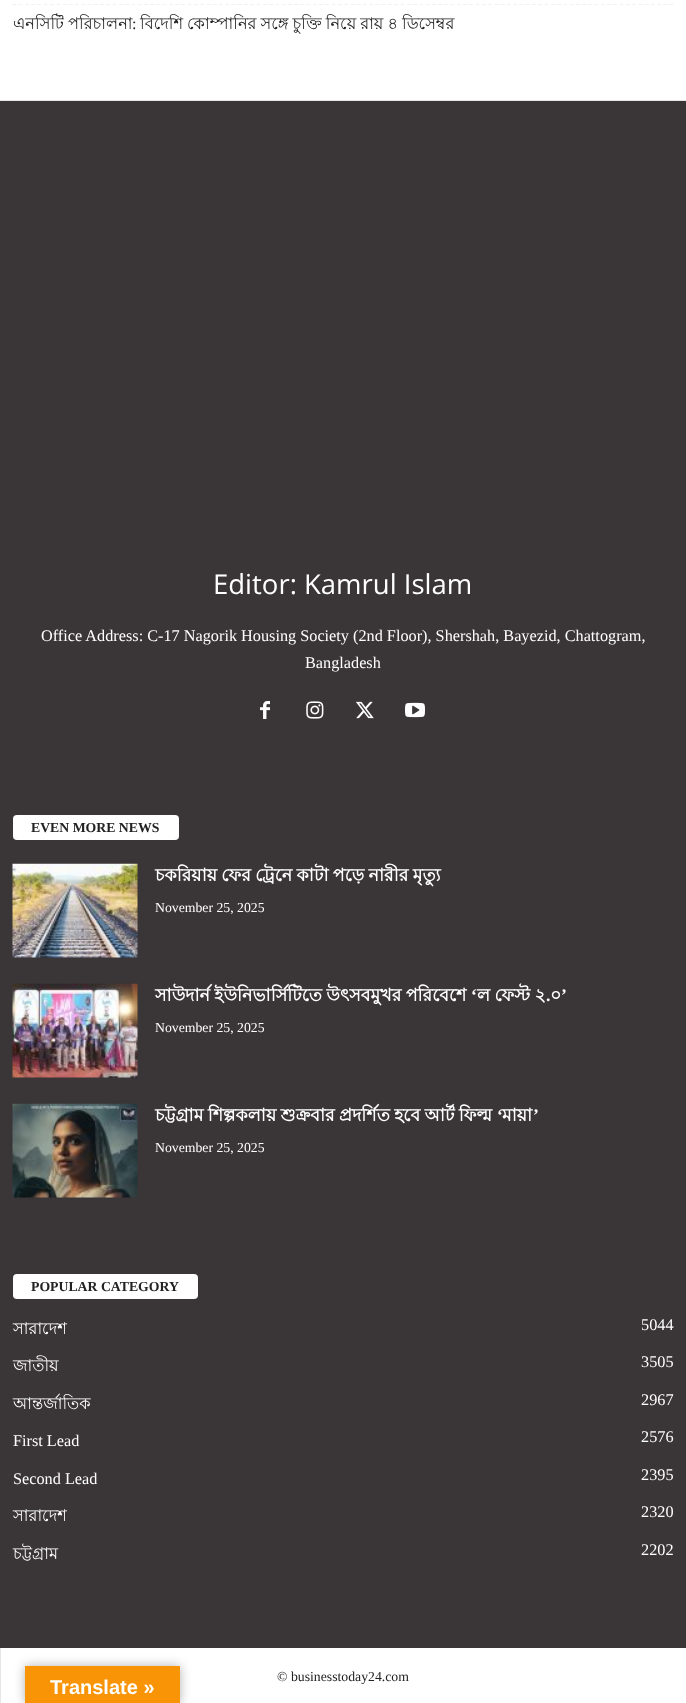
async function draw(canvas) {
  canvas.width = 686
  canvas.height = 1703
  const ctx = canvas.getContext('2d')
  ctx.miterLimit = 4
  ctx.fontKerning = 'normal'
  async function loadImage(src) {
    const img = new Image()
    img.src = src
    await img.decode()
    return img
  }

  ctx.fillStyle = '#fff'
  ctx.fillRect(0, 0, 686, 1703)
  ctx.fillStyle = '#e6e6e6'
  ctx.fillRect(0, 100, 686, 1)
  ctx.beginPath()
  ctx.moveTo(12.5, 4.5)
  ctx.lineTo(674, 4.5)
  ctx.strokeStyle = '#f1f1f1'
  ctx.lineWidth = 1.2
  ctx.setLineDash([3.75, 2.51])
  ctx.stroke()
  ctx.wordSpacing = '-0.5px'
  ctx.font = '16.25px Lohit Bengali'
  ctx.fillStyle = '#222'
  ctx.fillText('এনসিটি পরিচালনা', 13, 29)
  ctx.wordSpacing = '0px'
  ctx.font = '16.25px Liberation Serif'
  ctx.fillText(':', 132, 29)
  ctx.wordSpacing = '-0.5px'
  ctx.font = '16.25px Lohit Bengali'
  ctx.fillText('বিদেশি কোম্পানির সঙ্গে চুক্তি নিয়ে রায় ৪ ডিসেম্বর', 140, 29)
  ctx.fillStyle = '#3a3536'
  ctx.fillRect(0, 101, 686, 1547)
  ctx.wordSpacing = '0px'
  ctx.font = '27.5px Open Sans'
  ctx.fillStyle = '#fff'
  ctx.fillText('Editor: Kamrul Islam', 213, 594)
  ctx.font = '16.25px Liberation Serif'
  ctx.fillText('Office Address: C-17 Nagorik Housing Society (2nd Floor), Shershah, Bayezid, Chattogram,', 41, 641)
  ctx.fillText('Bangladesh', 305, 668)
  ctx.drawImage(await loadImage('image0.png'), 260, 701, 10, 18)
  ctx.drawImage(await loadImage('image1.png'), 306, 701, 18, 18)
  ctx.drawImage(await loadImage('image2.png'), 356, 701, 18, 18)
  ctx.drawImage(await loadImage('image3.png'), 405, 702, 20, 16)
  ctx.beginPath()
  ctx.roundRect(13, 815, 166, 25, 4)
  ctx.fill()
  ctx.font = 'bold 13.75px Liberation Serif'
  ctx.fillStyle = '#222'
  ctx.fillText('EVEN MORE NEWS', 31, 832)
  ctx.drawImage(await loadImage('image4.png'), 12, 863, 126, 95)
  ctx.wordSpacing = '-0.5px'
  ctx.font = 'bold 17.5px Lohit Bengali'
  ctx.fillStyle = '#fff'
  ctx.fillText('চকরিয়ায় ফের ট্রেনে কাটা পড়ে নারীর মৃত্যু', 155, 881)
  ctx.wordSpacing = '0px'
  ctx.font = '13.75px Liberation Serif'
  ctx.fillText('November 25, 2025', 155, 912)
  ctx.drawImage(await loadImage('image5.png'), 12, 983, 126, 95)
  ctx.wordSpacing = '-0.5px'
  ctx.font = 'bold 17.5px Lohit Bengali'
  ctx.fillText('সাউদার্ন ইউনিভার্সিটিতে উৎসবমুখর পরিবেশে', 155, 1001)
  ctx.wordSpacing = '0px'
  ctx.font = 'bold 17.5px Liberation Serif'
  ctx.fillText('‘', 471, 1001)
  ctx.wordSpacing = '-0.5px'
  ctx.font = 'bold 17.5px Lohit Bengali'
  ctx.fillText('ল ফেস্ট ২', 477, 1001)
  ctx.wordSpacing = '0px'
  ctx.fillText('০', 550, 1001)
  ctx.font = 'bold 17.5px Liberation Serif'
  ctx.fillText('’', 561, 1001)
  ctx.fillText('.', 546, 1001)
  ctx.font = '13.75px Liberation Serif'
  ctx.fillText('November 25, 2025', 155, 1032)
  ctx.drawImage(await loadImage('image6.png'), 12, 1103, 126, 95)
  ctx.wordSpacing = '-0.5px'
  ctx.font = 'bold 17.5px Lohit Bengali'
  ctx.fillText('চট্টগ্রাম শিল্পকলায় শুক্রবার প্রদর্শিত হবে আর্ট ফিল্ম', 155, 1121)
  ctx.wordSpacing = '0px'
  ctx.font = 'bold 17.5px Liberation Serif'
  ctx.fillText('‘', 497, 1121)
  ctx.font = 'bold 17.5px Lohit Bengali'
  ctx.fillText('মায়া', 502, 1121)
  ctx.font = 'bold 17.5px Liberation Serif'
  ctx.fillText('’', 533, 1121)
  ctx.font = '13.75px Liberation Serif'
  ctx.fillText('November 25, 2025', 155, 1152)
  ctx.beginPath()
  ctx.roundRect(13, 1274, 185, 25, 4)
  ctx.fill()
  ctx.font = 'bold 13.75px Liberation Serif'
  ctx.fillStyle = '#222'
  ctx.fillText('POPULAR CATEGORY', 31, 1291)
  ctx.font = '16.25px Lohit Bengali'
  ctx.fillStyle = '#fff'
  ctx.fillText('সারাদেশ', 13, 1334)
  ctx.font = '16.25px Liberation Serif'
  ctx.fillText('5044', 641, 1330)
  ctx.font = '16.25px Lohit Bengali'
  ctx.fillText('জাতীয়', 13, 1371)
  ctx.font = '16.25px Liberation Serif'
  ctx.fillText('3505', 641, 1367)
  ctx.font = '16.25px Lohit Bengali'
  ctx.fillText('আন্তর্জাতিক', 13, 1409)
  ctx.font = '16.25px Liberation Serif'
  ctx.fillText('2967', 641, 1405)
  ctx.fillText('First Lead', 13, 1446)
  ctx.fillText('2576', 641, 1442)
  ctx.fillText('Second Lead', 13, 1484)
  ctx.fillText('2395', 641, 1480)
  ctx.font = '16.25px Lohit Bengali'
  ctx.fillText('সারাদেশ', 13, 1521)
  ctx.font = '16.25px Liberation Serif'
  ctx.fillText('2320', 641, 1517)
  ctx.font = '16.25px Lohit Bengali'
  ctx.fillText('চট্টগ্রাম', 13, 1559)
  ctx.font = '16.25px Liberation Serif'
  ctx.fillText('2202', 641, 1555)
  ctx.fillStyle = '#e6e6e6'
  ctx.fillRect(0, 1648, 1, 55)
  ctx.font = '13.75px Liberation Serif'
  ctx.fillStyle = '#222'
  ctx.fillText('© businesstoday24.com', 277, 1681)
  ctx.fillStyle = '#0000004d'
  ctx.filter = 'blur(5.5px)'
  ctx.beginPath()
  ctx.rect(25, 1666, 155, 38)
  ctx.fill()
  ctx.filter = 'none'
  ctx.fillStyle = '#f89406'
  ctx.fillRect(25, 1666, 155, 37)
  ctx.font = 'bold 20px Liberation Sans'
  ctx.fillStyle = '#fff'
  ctx.fillText('Translate »', 50, 1694)
}

draw(document.querySelector('canvas'))
